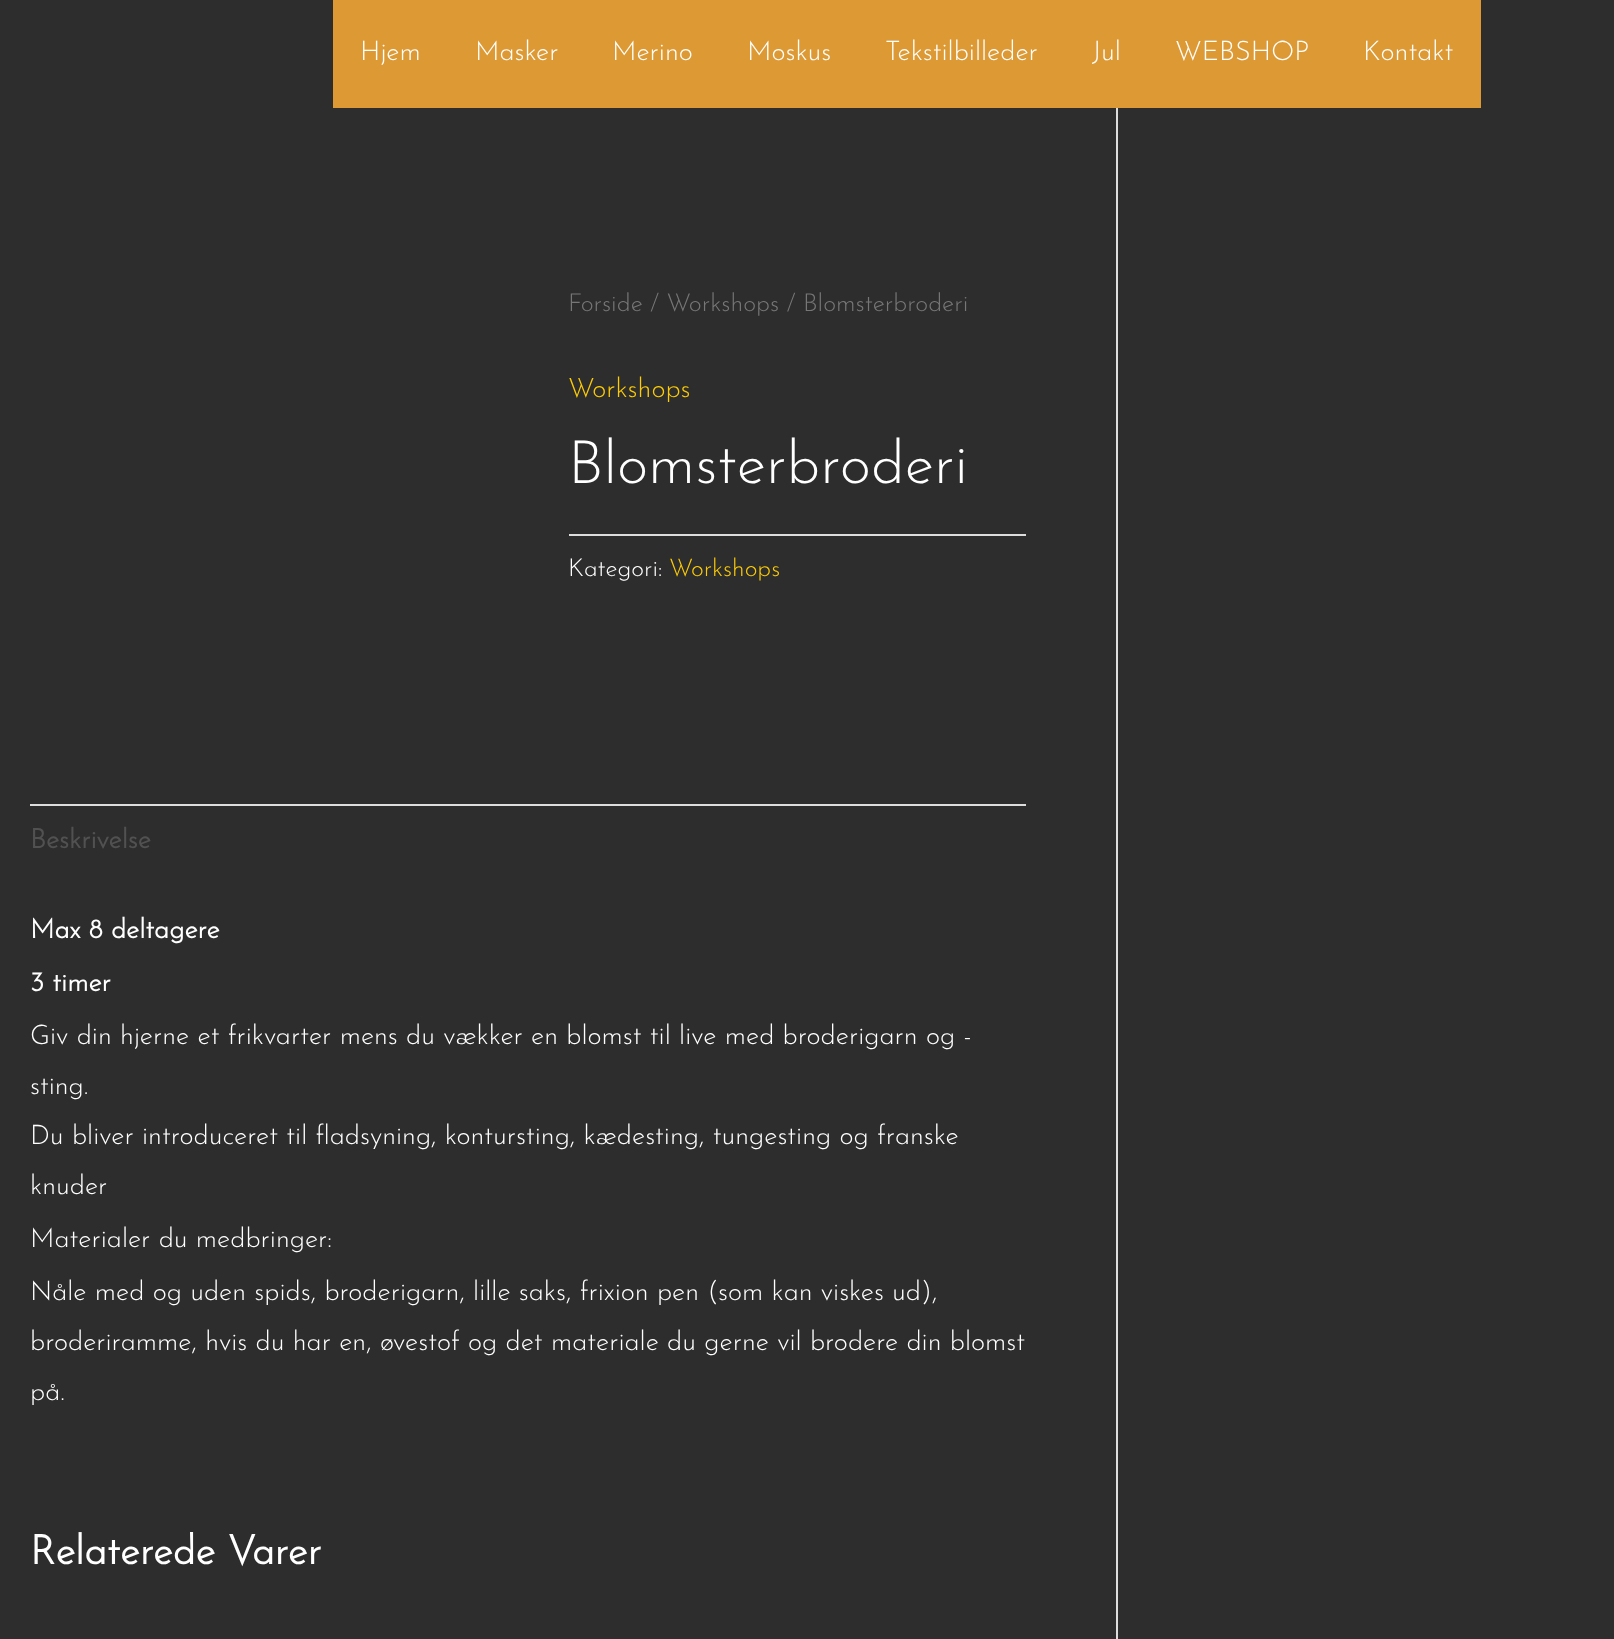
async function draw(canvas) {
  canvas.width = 1614
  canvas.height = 1639
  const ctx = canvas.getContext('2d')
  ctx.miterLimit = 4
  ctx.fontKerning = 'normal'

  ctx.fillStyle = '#2d2d2d'
  ctx.fillRect(0, 0, 1614, 1639)
  ctx.fillStyle = '#d93'
  ctx.fillRect(333, 0, 1148, 108)
  ctx.font = '100 27px Josefin Sans'
  ctx.fillStyle = '#fff'
  ctx.fillText('Hjem', 360, 60)
  ctx.fillText('Masker', 475, 60)
  ctx.fillText('Merino', 612, 60)
  ctx.fillText('Moskus', 747, 60)
  ctx.fillText('Tekstilbilleder', 885, 60)
  ctx.fillText('Jul', 1092, 60)
  ctx.fillText('WEBSHOP', 1175, 60)
  ctx.fillText('Kontakt', 1363, 60)
  ctx.fillStyle = '#ddd'
  ctx.fillRect(1116, 108, 2, 1531)
  ctx.font = '100 24.8px Josefin Sans'
  ctx.fillStyle = '#777'
  ctx.fillText('Forside / Workshops / Blomsterbroderi', 568, 311)
  ctx.font = '100 27px Josefin Sans'
  ctx.fillStyle = '#fecc05'
  ctx.fillText('Workshops', 568, 397)
  ctx.font = '100 60px Josefin Sans'
  ctx.fillStyle = '#fff'
  ctx.fillText('Blomsterbroderi', 568, 483)
  ctx.fillStyle = '#ddd'
  ctx.fillRect(569, 534, 457, 2)
  ctx.font = '100 24.5px Josefin Sans'
  ctx.fillStyle = '#fff'
  ctx.fillText('Kategori:', 568, 576)
  ctx.fillStyle = '#fecc05'
  ctx.fillText('Workshops', 669, 576)
  ctx.fillStyle = '#ddd'
  ctx.fillRect(30, 804, 996, 2)
  ctx.font = 'bold 27px Josefin Sans'
  ctx.fillStyle = '#515151'
  ctx.fillText('Beskrivelse', 30, 848)
  ctx.fillStyle = '#fff'
  ctx.fillText('Max 8 deltagere', 30, 938)
  ctx.fillText('3 timer', 30, 991)
  ctx.font = '100 27px Josefin Sans'
  ctx.fillText('Giv din hjerne et frikvarter mens du vækker en blomst til live med broderigarn og -', 30, 1044)
  ctx.fillText('sting.', 30, 1094)
  ctx.fillText('Du bliver introduceret til fladsyning, kontursting, kædesting, tungesting og franske', 30, 1144)
  ctx.fillText('knuder', 30, 1194)
  ctx.fillText('Materialer du medbringer:', 30, 1247)
  ctx.fillText('Nåle med og uden spids, broderigarn, lille saks, frixion pen (som kan viskes ud),', 30, 1300)
  ctx.fillText('broderiramme, hvis du har en, øvestof og det materiale du gerne vil brodere din blomst', 30, 1350)
  ctx.fillText('på.', 30, 1400)
  ctx.font = 'bold 40.5px Josefin Sans'
  ctx.fillText('Relaterede Varer', 30, 1564)
}

draw(document.querySelector('canvas'))
